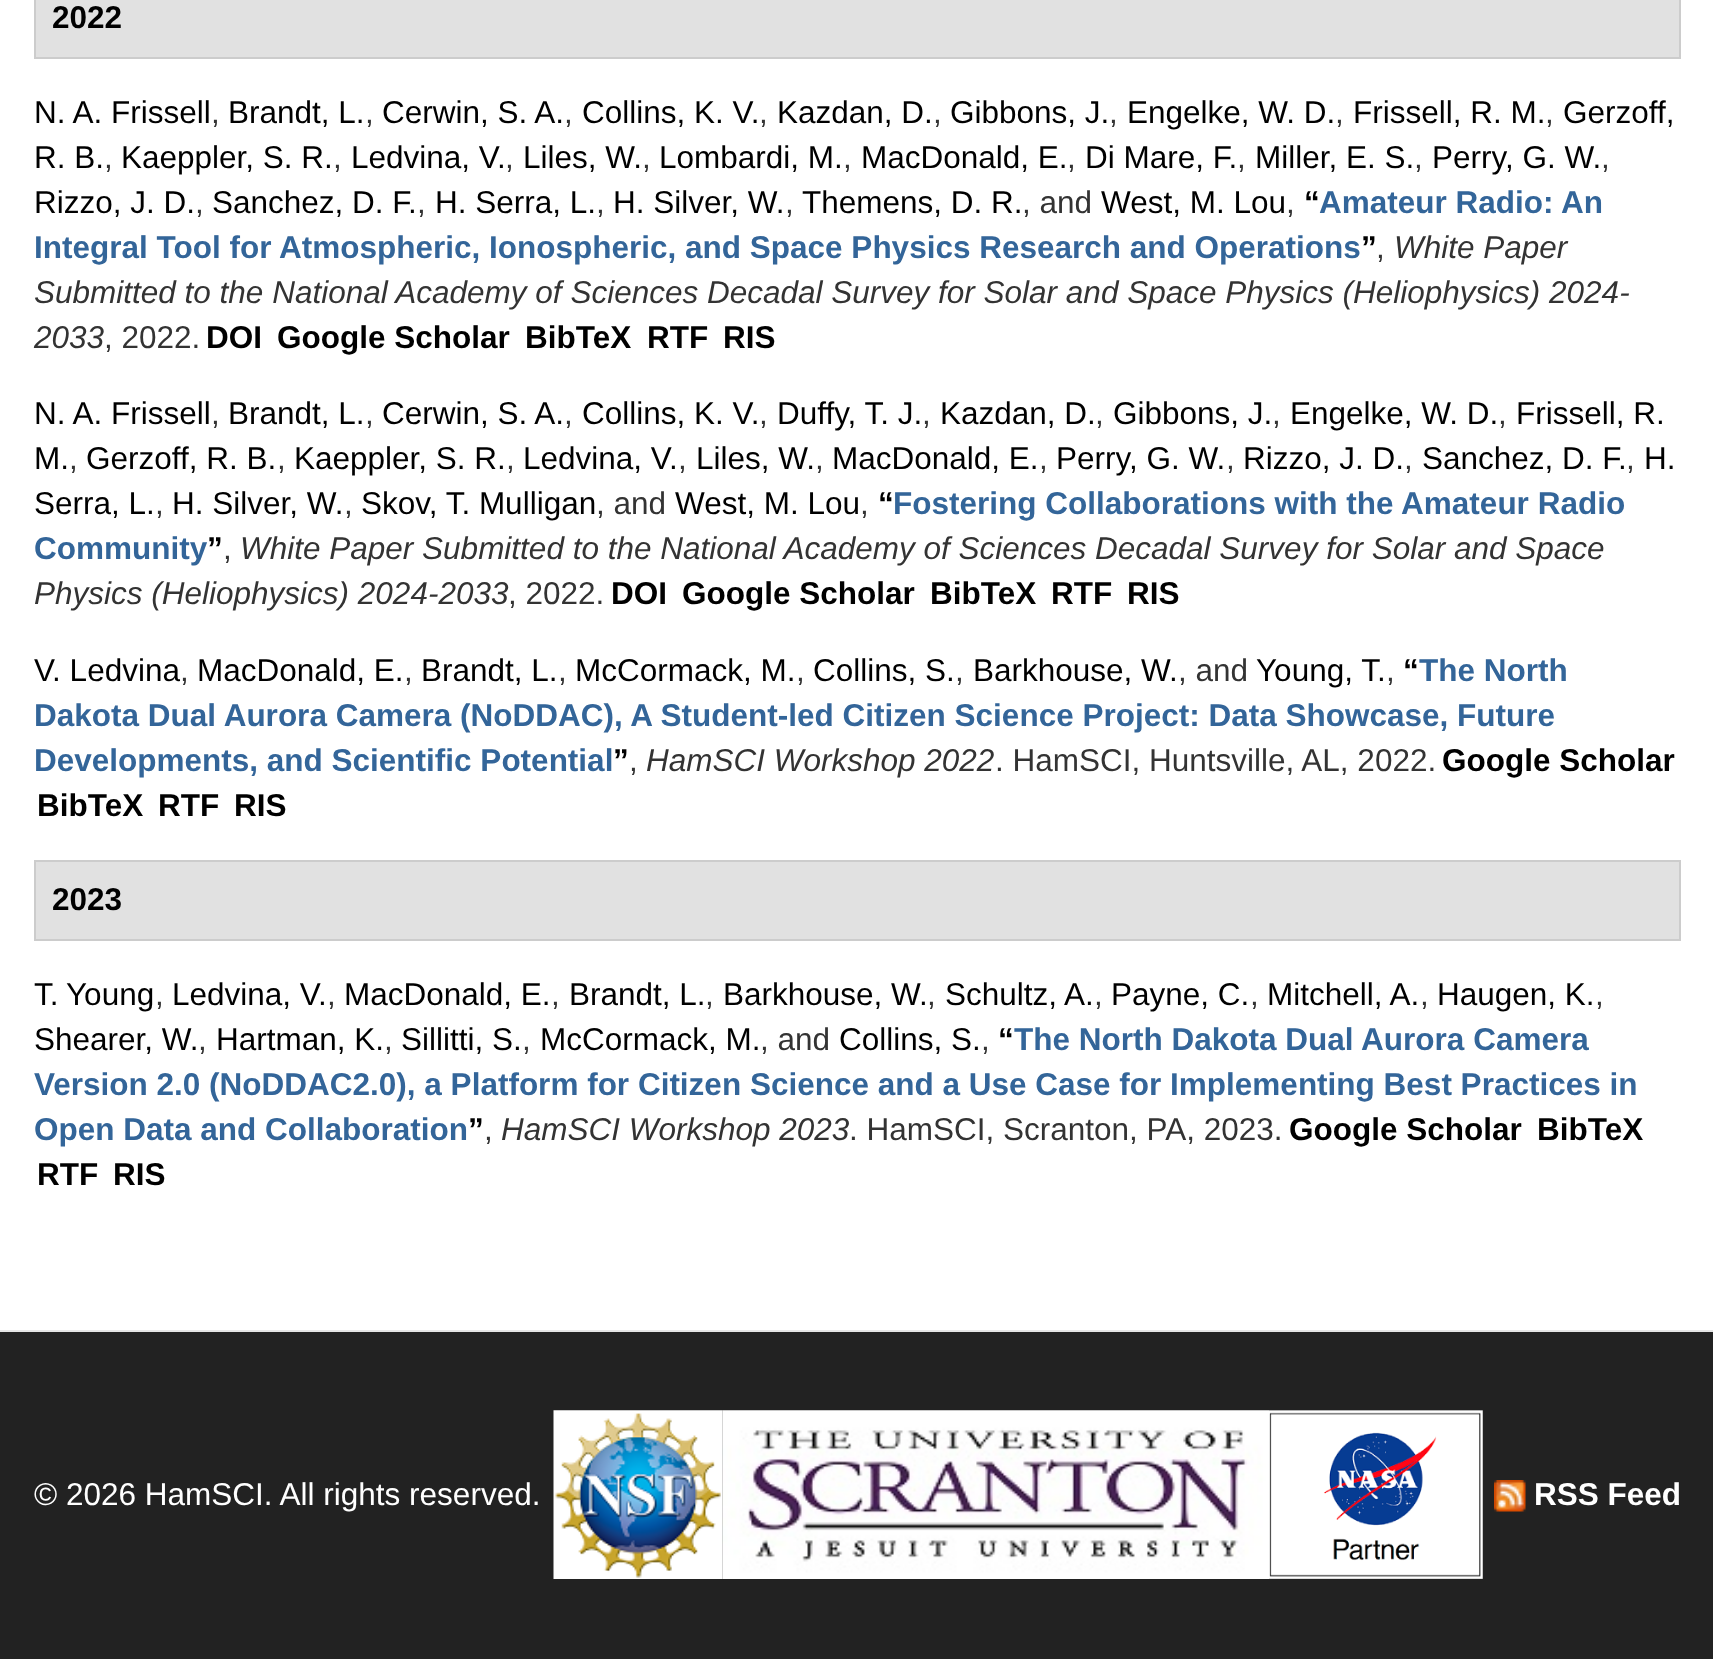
async function draw(canvas) {
  canvas.width = 1713
  canvas.height = 1659
  const ctx = canvas.getContext('2d')
  ctx.miterLimit = 4
  ctx.fontKerning = 'normal'
  async function loadImage(src) {
    const img = new Image()
    img.src = src
    await img.decode()
    return img
  }

  ctx.fillStyle = '#fff'
  ctx.fillRect(0, 0, 1713, 1659)
  ctx.fillStyle = '#e1e1e1'
  ctx.beginPath()
  ctx.rect(35, -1, 1645, 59)
  ctx.fill()
  ctx.strokeStyle = '#ccc'
  ctx.lineWidth = 2
  ctx.stroke()
  ctx.font = 'bold 31.5px Liberation Sans'
  ctx.fillStyle = '#000'
  ctx.fillText('2022', 52, 28)
  ctx.font = '31.5px Liberation Sans'
  ctx.fillText('N. A. Frissell', 34, 123)
  ctx.fillStyle = '#333'
  ctx.fillText(',', 211, 123)
  ctx.fillStyle = '#000'
  ctx.fillText('Brandt, L.', 228, 123)
  ctx.fillStyle = '#333'
  ctx.fillText(',', 365, 123)
  ctx.fillStyle = '#000'
  ctx.fillText('Cerwin, S. A.', 382, 123)
  ctx.fillStyle = '#333'
  ctx.fillText(',', 564, 123)
  ctx.fillStyle = '#000'
  ctx.fillText('Collins, K. V.', 582, 123)
  ctx.fillStyle = '#333'
  ctx.fillText(',', 759, 123)
  ctx.fillStyle = '#000'
  ctx.fillText('Kazdan, D.', 777, 123)
  ctx.fillStyle = '#333'
  ctx.fillText(',', 933, 123)
  ctx.fillStyle = '#000'
  ctx.fillText('Gibbons, J.', 950, 123)
  ctx.fillStyle = '#333'
  ctx.fillText(',', 1109, 123)
  ctx.fillStyle = '#000'
  ctx.fillText('Engelke, W. D.', 1127, 123)
  ctx.fillStyle = '#333'
  ctx.fillText(',', 1335, 123)
  ctx.fillStyle = '#000'
  ctx.fillText('Frissell, R. M.', 1353, 123)
  ctx.fillStyle = '#333'
  ctx.fillText(',', 1545, 123)
  ctx.fillStyle = '#000'
  ctx.fillText('Gerzoff,', 1563, 123)
  ctx.fillText('R. B.', 34, 168)
  ctx.fillStyle = '#333'
  ctx.fillText(',', 104, 168)
  ctx.fillStyle = '#000'
  ctx.fillText('Kaeppler, S. R.', 121, 168)
  ctx.fillStyle = '#333'
  ctx.fillText(',', 333, 168)
  ctx.fillStyle = '#000'
  ctx.fillText('Ledvina, V.', 351, 168)
  ctx.fillStyle = '#333'
  ctx.fillText(',', 505, 168)
  ctx.fillStyle = '#000'
  ctx.fillText('Liles, W.', 523, 168)
  ctx.fillStyle = '#333'
  ctx.fillText(',', 642, 168)
  ctx.fillStyle = '#000'
  ctx.fillText('Lombardi, M.', 659, 168)
  ctx.fillStyle = '#333'
  ctx.fillText(',', 843, 168)
  ctx.fillStyle = '#000'
  ctx.fillText('MacDonald, E.', 861, 168)
  ctx.fillStyle = '#333'
  ctx.fillText(',', 1067, 168)
  ctx.fillStyle = '#000'
  ctx.fillText('Di Mare, F.', 1085, 168)
  ctx.fillStyle = '#333'
  ctx.fillText(',', 1237, 168)
  ctx.fillStyle = '#000'
  ctx.fillText('Miller, E. S.', 1255, 168)
  ctx.fillStyle = '#333'
  ctx.fillText(',', 1414, 168)
  ctx.fillStyle = '#000'
  ctx.fillText('Perry, G. W.', 1432, 168)
  ctx.fillStyle = '#333'
  ctx.fillText(',', 1601, 168)
  ctx.fillStyle = '#000'
  ctx.fillText('Rizzo, J. D.', 34, 213)
  ctx.fillText('Sanchez, D. F.', 212, 213)
  ctx.fillText('H. Serra, L.', 435, 213)
  ctx.fillText('H. Silver, W.', 613, 213)
  ctx.fillText('Themens, D. R.', 802, 213)
  ctx.fillStyle = '#333'
  ctx.fillText(', and', 1022, 213)
  ctx.fillStyle = '#000'
  ctx.fillText('West, M. Lou', 1101, 213)
  ctx.font = 'bold 31.5px Liberation Sans'
  ctx.fillText('“', 1304, 213)
  ctx.fillStyle = '#336599'
  ctx.fillText('Amateur Radio: An', 1319, 213)
  ctx.font = '31.5px Liberation Sans'
  ctx.fillStyle = '#333'
  ctx.fillText(',', 195, 213)
  ctx.fillText(',', 417, 213)
  ctx.fillText(',', 596, 213)
  ctx.fillText(',', 785, 213)
  ctx.fillText(',', 1286, 213)
  ctx.font = 'bold 31.5px Liberation Sans'
  ctx.fillStyle = '#336599'
  ctx.fillText('Integral Tool for Atmospheric, Ionospheric, and Space Physics Research and Operations', 34, 258)
  ctx.fillStyle = '#000'
  ctx.fillText('”', 1361, 258)
  ctx.font = 'italic 31.5px Liberation Sans'
  ctx.fillStyle = '#333'
  ctx.fillText('White Paper', 1394, 258)
  ctx.font = '31.5px Liberation Sans'
  ctx.fillText(',', 1376, 258)
  ctx.font = 'italic 31.5px Liberation Sans'
  ctx.fillText('Submitted to the National Academy of Sciences Decadal Survey for Solar and Space Physics (Heliophysics) 2024-', 34, 303)
  ctx.fillText('2033', 34, 348)
  ctx.font = '31.5px Liberation Sans'
  ctx.fillText(', 2022.', 104, 348)
  ctx.font = 'bold 31.5px Liberation Sans'
  ctx.fillStyle = '#000'
  ctx.fillText('DOI', 206, 348)
  ctx.fillText('Google Scholar', 277, 348)
  ctx.fillText('BibTeX', 525, 348)
  ctx.fillText('RTF', 647, 348)
  ctx.fillText('RIS', 723, 348)
  ctx.font = '31.5px Liberation Sans'
  ctx.fillText('N. A. Frissell', 34, 424)
  ctx.fillStyle = '#333'
  ctx.fillText(',', 211, 424)
  ctx.fillStyle = '#000'
  ctx.fillText('Brandt, L.', 228, 424)
  ctx.fillStyle = '#333'
  ctx.fillText(',', 365, 424)
  ctx.fillStyle = '#000'
  ctx.fillText('Cerwin, S. A.', 382, 424)
  ctx.fillStyle = '#333'
  ctx.fillText(',', 564, 424)
  ctx.fillStyle = '#000'
  ctx.fillText('Collins, K. V.', 582, 424)
  ctx.fillStyle = '#333'
  ctx.fillText(',', 759, 424)
  ctx.fillStyle = '#000'
  ctx.fillText('Duffy, T. J.', 777, 424)
  ctx.fillStyle = '#333'
  ctx.fillText(',', 922, 424)
  ctx.fillStyle = '#000'
  ctx.fillText('Kazdan, D.', 940, 424)
  ctx.fillStyle = '#333'
  ctx.fillText(',', 1095, 424)
  ctx.fillStyle = '#000'
  ctx.fillText('Gibbons, J.', 1113, 424)
  ctx.fillStyle = '#333'
  ctx.fillText(',', 1272, 424)
  ctx.fillStyle = '#000'
  ctx.fillText('Engelke, W. D.', 1290, 424)
  ctx.fillStyle = '#333'
  ctx.fillText(',', 1498, 424)
  ctx.fillStyle = '#000'
  ctx.fillText('Frissell, R.', 1516, 424)
  ctx.fillText('M.', 34, 469)
  ctx.fillStyle = '#333'
  ctx.fillText(',', 69, 469)
  ctx.fillStyle = '#000'
  ctx.fillText('Gerzoff, R. B.', 86, 469)
  ctx.fillStyle = '#333'
  ctx.fillText(',', 277, 469)
  ctx.fillStyle = '#000'
  ctx.fillText('Kaeppler, S. R.', 294, 469)
  ctx.fillStyle = '#333'
  ctx.fillText(',', 506, 469)
  ctx.fillStyle = '#000'
  ctx.fillText('Ledvina, V.', 523, 469)
  ctx.fillStyle = '#333'
  ctx.fillText(',', 678, 469)
  ctx.fillStyle = '#000'
  ctx.fillText('Liles, W.', 696, 469)
  ctx.fillStyle = '#333'
  ctx.fillText(',', 815, 469)
  ctx.fillStyle = '#000'
  ctx.fillText('MacDonald, E.', 832, 469)
  ctx.fillStyle = '#333'
  ctx.fillText(',', 1039, 469)
  ctx.fillStyle = '#000'
  ctx.fillText('Perry, G. W.', 1056, 469)
  ctx.fillStyle = '#333'
  ctx.fillText(',', 1226, 469)
  ctx.fillStyle = '#000'
  ctx.fillText('Rizzo, J. D.', 1243, 469)
  ctx.fillStyle = '#333'
  ctx.fillText(',', 1404, 469)
  ctx.fillStyle = '#000'
  ctx.fillText('Sanchez, D. F.', 1422, 469)
  ctx.fillStyle = '#333'
  ctx.fillText(',', 1626, 469)
  ctx.fillStyle = '#000'
  ctx.fillText('H.', 1644, 469)
  ctx.fillText('Serra, L.', 34, 514)
  ctx.fillText('H. Silver, W.', 172, 514)
  ctx.fillText('Skov, T. Mulligan', 361, 514)
  ctx.fillStyle = '#333'
  ctx.fillText(', and', 596, 514)
  ctx.fillStyle = '#000'
  ctx.fillText('West, M. Lou', 675, 514)
  ctx.font = 'bold 31.5px Liberation Sans'
  ctx.fillText('“', 878, 514)
  ctx.fillStyle = '#336599'
  ctx.fillText('Fostering Collaborations with the Amateur Radio', 893, 514)
  ctx.font = '31.5px Liberation Sans'
  ctx.fillStyle = '#333'
  ctx.fillText(',', 155, 514)
  ctx.fillText(',', 344, 514)
  ctx.fillText(',', 860, 514)
  ctx.font = 'bold 31.5px Liberation Sans'
  ctx.fillStyle = '#336599'
  ctx.fillText('Community', 34, 559)
  ctx.fillStyle = '#000'
  ctx.fillText('”', 207, 559)
  ctx.font = 'italic 31.5px Liberation Sans'
  ctx.fillStyle = '#333'
  ctx.fillText('White Paper Submitted to the National Academy of Sciences Decadal Survey for Solar and Space', 240, 559)
  ctx.font = '31.5px Liberation Sans'
  ctx.fillText(',', 223, 559)
  ctx.font = 'italic 31.5px Liberation Sans'
  ctx.fillText('Physics (Heliophysics) 2024-2033', 34, 604)
  ctx.font = '31.5px Liberation Sans'
  ctx.fillText(', 2022.', 508, 604)
  ctx.font = 'bold 31.5px Liberation Sans'
  ctx.fillStyle = '#000'
  ctx.fillText('DOI', 611, 604)
  ctx.fillText('Google Scholar', 682, 604)
  ctx.fillText('BibTeX', 930, 604)
  ctx.fillText('RTF', 1051, 604)
  ctx.fillText('RIS', 1127, 604)
  ctx.font = '31.5px Liberation Sans'
  ctx.fillText('V. Ledvina', 34, 681)
  ctx.fillText('MacDonald, E.', 197, 681)
  ctx.fillText('Brandt, L.', 421, 681)
  ctx.fillText('McCormack, M.', 575, 681)
  ctx.fillText('Collins, S.', 813, 681)
  ctx.fillText('Barkhouse, W.', 973, 681)
  ctx.fillStyle = '#333'
  ctx.fillText(', and', 1178, 681)
  ctx.fillStyle = '#000'
  ctx.fillText('Young, T.', 1256, 681)
  ctx.font = 'bold 31.5px Liberation Sans'
  ctx.fillText('“', 1403, 681)
  ctx.fillStyle = '#336599'
  ctx.fillText('The North', 1419, 681)
  ctx.font = '31.5px Liberation Sans'
  ctx.fillStyle = '#333'
  ctx.fillText(',', 180, 681)
  ctx.fillText(',', 404, 681)
  ctx.fillText(',', 558, 681)
  ctx.fillText(',', 796, 681)
  ctx.fillText(',', 955, 681)
  ctx.fillText(',', 1386, 681)
  ctx.font = 'bold 31.5px Liberation Sans'
  ctx.fillStyle = '#336599'
  ctx.fillText('Dakota Dual Aurora Camera (NoDDAC), A Student-led Citizen Science Project: Data Showcase, Future', 34, 726)
  ctx.fillText('Developments, and Scientific Potential', 34, 771)
  ctx.fillStyle = '#000'
  ctx.fillText('”', 613, 771)
  ctx.font = 'italic 31.5px Liberation Sans'
  ctx.fillStyle = '#333'
  ctx.fillText('HamSCI Workshop 2022', 646, 771)
  ctx.font = '31.5px Liberation Sans'
  ctx.fillText('. HamSCI, Huntsville, AL, 2022.', 995, 771)
  ctx.font = 'bold 31.5px Liberation Sans'
  ctx.fillStyle = '#000'
  ctx.fillText('Google Scholar', 1442, 771)
  ctx.font = '31.5px Liberation Sans'
  ctx.fillStyle = '#333'
  ctx.fillText(',', 629, 771)
  ctx.font = 'bold 31.5px Liberation Sans'
  ctx.fillStyle = '#000'
  ctx.fillText('BibTeX', 37, 816)
  ctx.fillText('RTF', 158, 816)
  ctx.fillText('RIS', 234, 816)
  ctx.fillStyle = '#e1e1e1'
  ctx.beginPath()
  ctx.rect(35, 861, 1645, 79)
  ctx.fill()
  ctx.stroke()
  ctx.fillStyle = '#000'
  ctx.fillText('2023', 52, 910)
  ctx.font = '31.5px Liberation Sans'
  ctx.fillText('T.', 34, 1005)
  ctx.fillText('Young', 66, 1005)
  ctx.fillStyle = '#333'
  ctx.fillText(',', 155, 1005)
  ctx.fillStyle = '#000'
  ctx.fillText('Ledvina, V.', 172, 1005)
  ctx.fillStyle = '#333'
  ctx.fillText(',', 327, 1005)
  ctx.fillStyle = '#000'
  ctx.fillText('MacDonald, E.', 344, 1005)
  ctx.fillStyle = '#333'
  ctx.fillText(',', 551, 1005)
  ctx.fillStyle = '#000'
  ctx.fillText('Brandt, L.', 569, 1005)
  ctx.fillStyle = '#333'
  ctx.fillText(',', 705, 1005)
  ctx.fillStyle = '#000'
  ctx.fillText('Barkhouse, W.', 723, 1005)
  ctx.fillStyle = '#333'
  ctx.fillText(',', 927, 1005)
  ctx.fillStyle = '#000'
  ctx.fillText('Schultz, A.', 945, 1005)
  ctx.fillStyle = '#333'
  ctx.fillText(',', 1094, 1005)
  ctx.fillStyle = '#000'
  ctx.fillText('Payne, C.', 1111, 1005)
  ctx.fillStyle = '#333'
  ctx.fillText(',', 1250, 1005)
  ctx.fillStyle = '#000'
  ctx.fillText('Mitchell, A.', 1267, 1005)
  ctx.fillStyle = '#333'
  ctx.fillText(',', 1420, 1005)
  ctx.fillStyle = '#000'
  ctx.fillText('Haugen, K.', 1437, 1005)
  ctx.fillStyle = '#333'
  ctx.fillText(',', 1595, 1005)
  ctx.fillStyle = '#000'
  ctx.fillText('Shearer, W.', 34, 1050)
  ctx.fillText('Hartman, K.', 216, 1050)
  ctx.fillText('Sillitti, S.', 401, 1050)
  ctx.fillText('McCormack, M.', 540, 1050)
  ctx.fillStyle = '#333'
  ctx.fillText(', and', 760, 1050)
  ctx.fillStyle = '#000'
  ctx.fillText('Collins, S.', 839, 1050)
  ctx.font = 'bold 31.5px Liberation Sans'
  ctx.fillText('“', 998, 1050)
  ctx.fillStyle = '#336599'
  ctx.fillText('The North Dakota Dual Aurora Camera', 1014, 1050)
  ctx.font = '31.5px Liberation Sans'
  ctx.fillStyle = '#333'
  ctx.fillText(',', 198, 1050)
  ctx.fillText(',', 384, 1050)
  ctx.fillText(',', 522, 1050)
  ctx.fillText(',', 981, 1050)
  ctx.font = 'bold 31.5px Liberation Sans'
  ctx.fillStyle = '#336599'
  ctx.fillText('Version 2.0 (NoDDAC2.0), a Platform for Citizen Science and a Use Case for Implementing Best Practices in', 34, 1095)
  ctx.fillText('Open Data and Collaboration', 34, 1140)
  ctx.fillStyle = '#000'
  ctx.fillText('”', 468, 1140)
  ctx.font = '31.5px Liberation Sans'
  ctx.fillStyle = '#333'
  ctx.fillText(',', 484, 1140)
  ctx.font = 'italic 31.5px Liberation Sans'
  ctx.fillText('HamSCI Workshop 2023', 501, 1140)
  ctx.font = '31.5px Liberation Sans'
  ctx.fillText('. HamSCI, Scranton, PA, 2023.', 849, 1140)
  ctx.font = 'bold 31.5px Liberation Sans'
  ctx.fillStyle = '#000'
  ctx.fillText('Google Scholar', 1289, 1140)
  ctx.fillText('BibTeX', 1537, 1140)
  ctx.fillText('RTF', 37, 1185)
  ctx.fillText('RIS', 113, 1185)
  ctx.fillStyle = '#222'
  ctx.fillRect(0, 1332, 1713, 327)
  ctx.fillStyle = '#e5e5e5'
  ctx.fillRect(0, 1330, 1713, 2)
  ctx.font = '31.5px Liberation Sans'
  ctx.fillStyle = '#fff'
  ctx.fillText('© 2026 HamSCI. All rights reserved.', 34, 1505)
  ctx.drawImage(await loadImage('image0.png'), 553, 1410, 170, 169)
  ctx.drawImage(await loadImage('image1.png'), 722, 1410, 547, 169)
  ctx.drawImage(await loadImage('image2.png'), 1269, 1410, 214, 169)
  ctx.drawImage(await loadImage('image3.png'), 1494, 1480, 32, 32)
  ctx.font = 'bold 31.5px Liberation Sans'
  ctx.fillText('RSS Feed', 1534, 1505)
}

draw(document.querySelector('canvas'))
